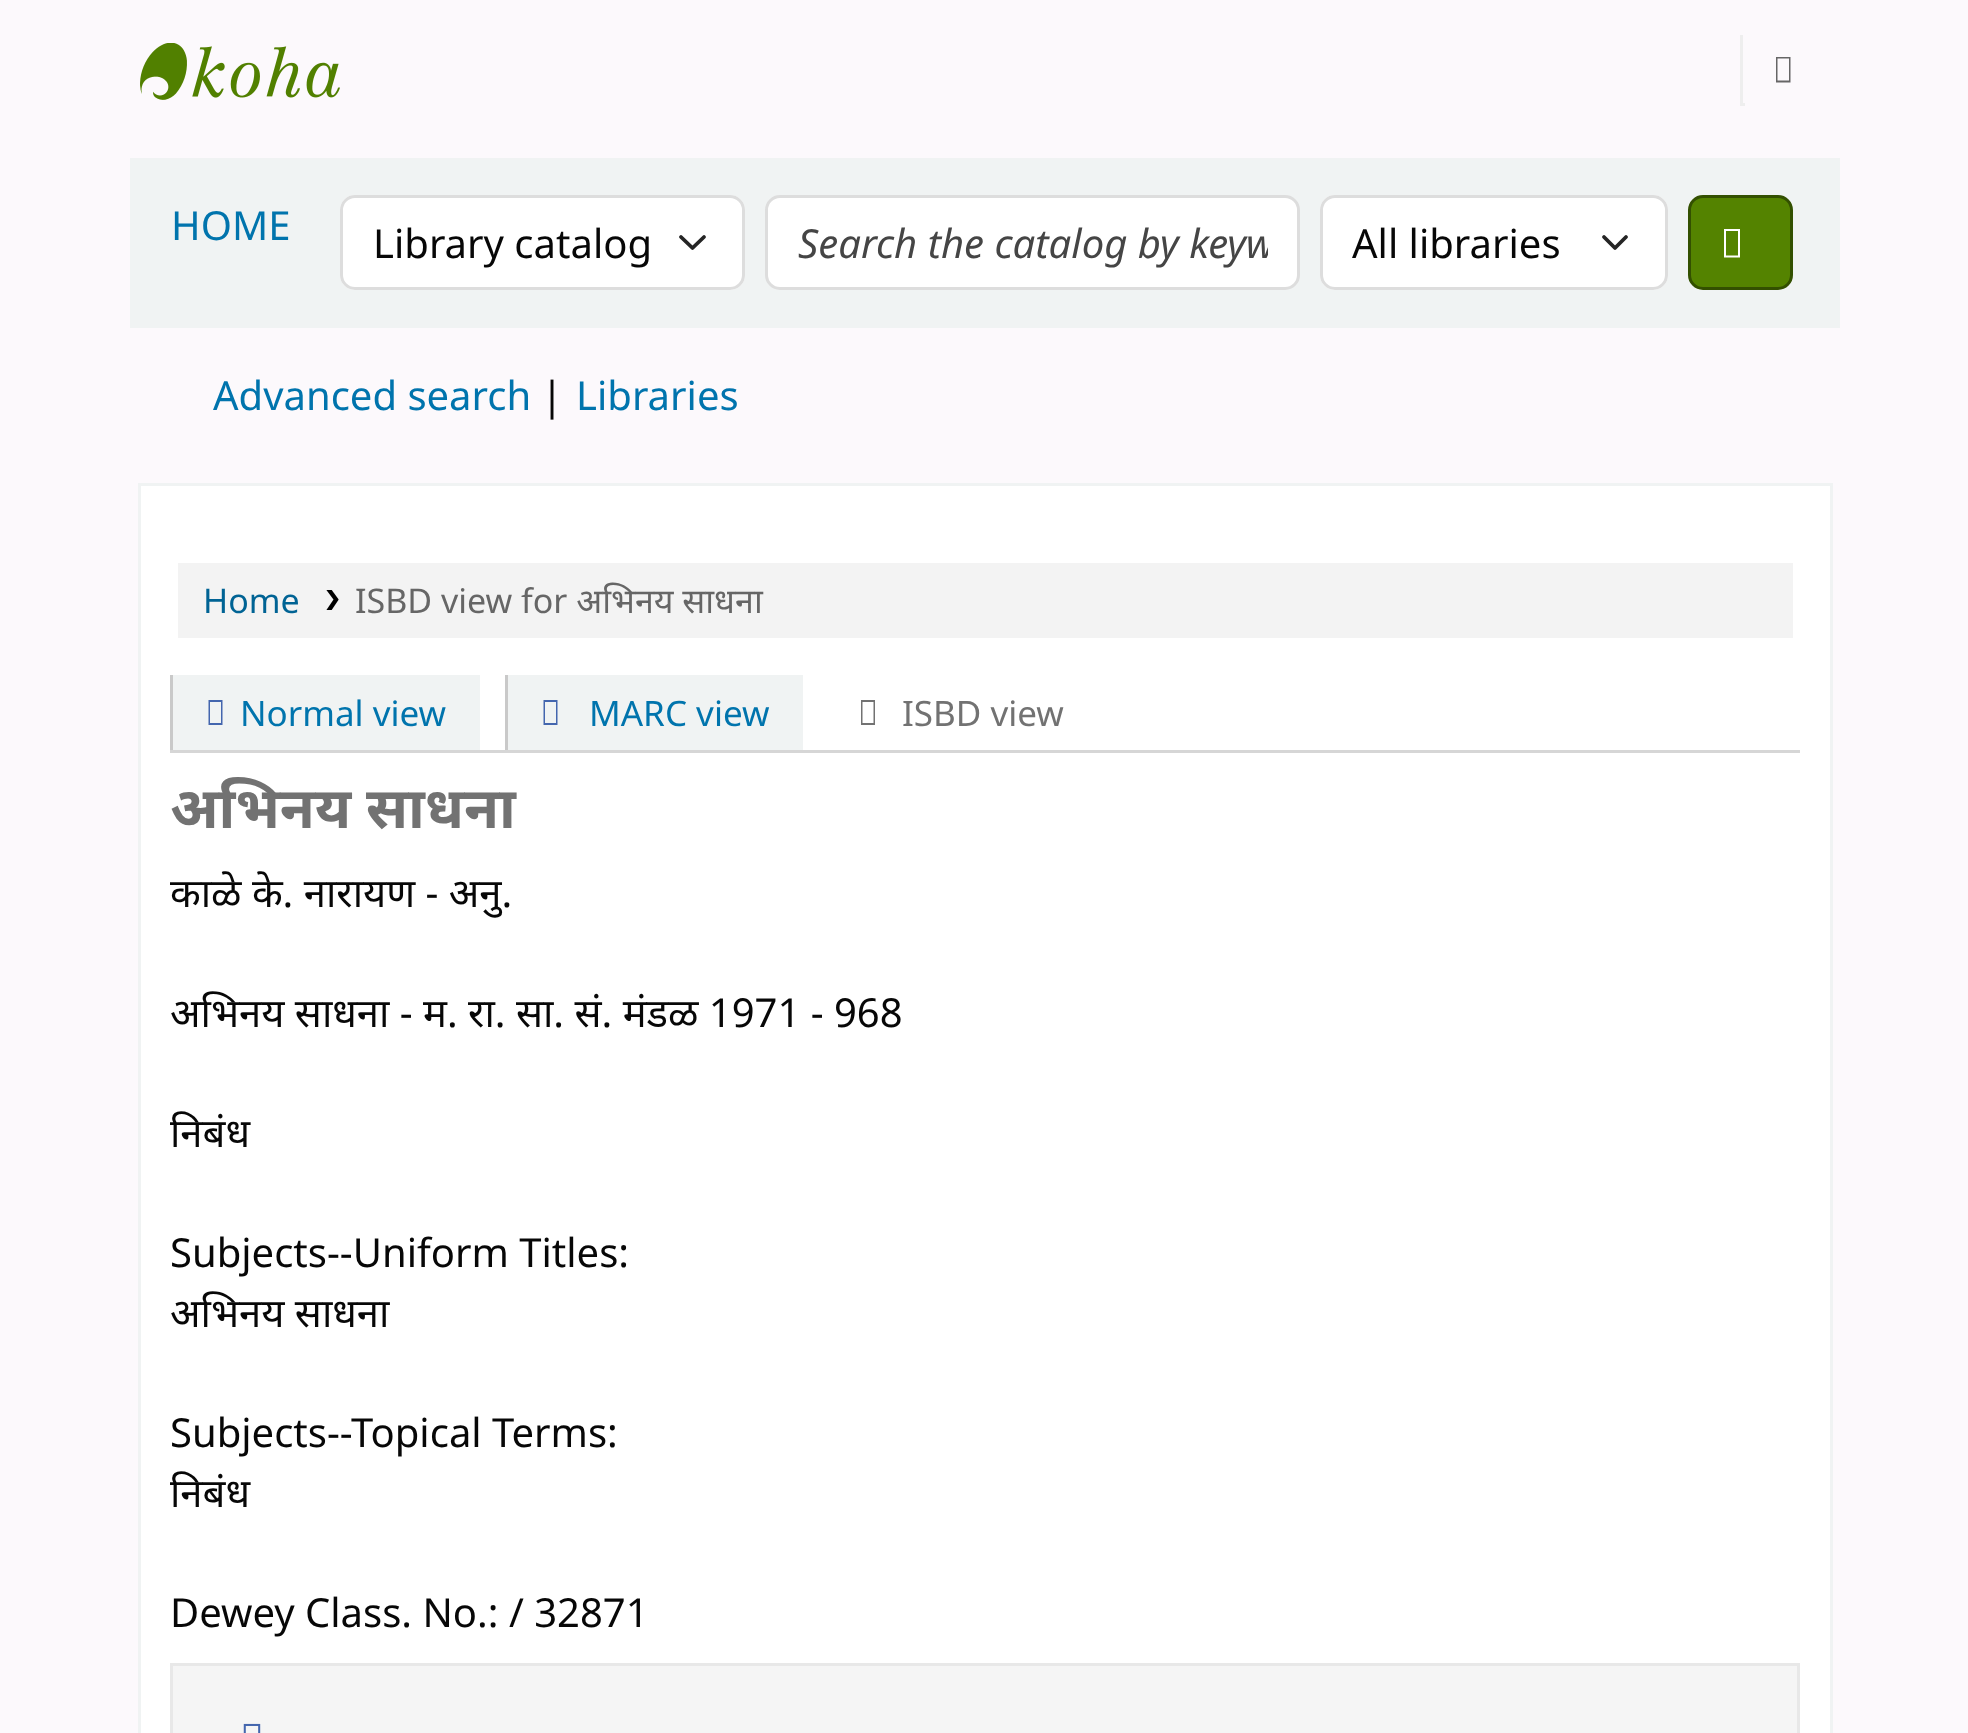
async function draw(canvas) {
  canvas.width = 1968
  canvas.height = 1733
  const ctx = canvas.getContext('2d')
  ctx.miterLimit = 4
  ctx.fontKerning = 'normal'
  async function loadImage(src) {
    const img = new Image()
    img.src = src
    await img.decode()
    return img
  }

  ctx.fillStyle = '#fcf9fc'
  ctx.fillRect(0, 0, 1968, 1733)
  ctx.drawImage(await loadImage('image0.png'), 140, 43, 200, 57)
  ctx.fillStyle = '#eee'
  ctx.fillRect(1740, 103, 5, 3)
  ctx.fillRect(1740, 35, 3, 70)
  ctx.fillStyle = '#666'
  ctx.beginPath()
  ctx.moveTo(1776, 82.5)
  ctx.lineTo(1776, 57)
  ctx.lineTo(1790.5, 57)
  ctx.lineTo(1790.5, 82.5)
  ctx.closePath()
  ctx.moveTo(1777.5, 80.5)
  ctx.lineTo(1789, 80.5)
  ctx.lineTo(1789, 58.5)
  ctx.lineTo(1777.5, 58.5)
  ctx.closePath()
  ctx.fill()
  ctx.fillStyle = '#f0f3f3'
  ctx.fillRect(130, 158, 1710, 170)
  ctx.font = '40px Noto Sans'
  ctx.fillStyle = '#0074ad'
  ctx.fillText('HOME', 171, 240)
  ctx.fillStyle = '#fff'
  ctx.beginPath()
  ctx.roundRect(340, 195, 405, 95, 15)
  ctx.fill()
  ctx.beginPath()
  ctx.moveTo(681, 237)
  ctx.lineTo(692.5, 248)
  ctx.lineTo(704, 237)
  ctx.strokeStyle = '#252525'
  ctx.lineWidth = 3.8
  ctx.lineCap = 'round'
  ctx.lineJoin = 'round'
  ctx.stroke()
  ctx.beginPath()
  ctx.roundRect(341.5, 196.5, 402, 92, 13.5)
  ctx.strokeStyle = '#ddd'
  ctx.lineWidth = 3
  ctx.lineJoin = 'miter'
  ctx.stroke()
  ctx.fillStyle = '#070707'
  ctx.fillText('Library catalog', 373, 258)
  ctx.fillStyle = '#fff'
  ctx.beginPath()
  ctx.roundRect(766.5, 196.5, 532, 92, 13.5)
  ctx.fill()
  ctx.stroke()
  ctx.save()
  ctx.beginPath()
  ctx.rect(798, 215, 470, 55)
  ctx.clip()
  ctx.font = 'italic 40px Noto Sans'
  ctx.fillStyle = '#454545'
  ctx.fillText('Search the catalog by keyw', 798, 258)
  ctx.restore()
  ctx.beginPath()
  ctx.roundRect(1320, 195, 348, 95, 15)
  ctx.fill()
  ctx.beginPath()
  ctx.moveTo(1604, 237)
  ctx.lineTo(1615, 248)
  ctx.lineTo(1626, 237)
  ctx.strokeStyle = '#252525'
  ctx.lineWidth = 3.8
  ctx.lineJoin = 'round'
  ctx.stroke()
  ctx.beginPath()
  ctx.roundRect(1321.5, 196.5, 345, 92, 13.5)
  ctx.strokeStyle = '#ddd'
  ctx.lineWidth = 3
  ctx.lineJoin = 'miter'
  ctx.stroke()
  ctx.fillStyle = '#070707'
  ctx.fillText('All libraries', 1352, 258)
  ctx.fillStyle = '#548300'
  ctx.beginPath()
  ctx.roundRect(1689.5, 196.5, 102, 92, 13.5)
  ctx.fill()
  ctx.strokeStyle = '#335000'
  ctx.stroke()
  ctx.fillStyle = '#fff'
  ctx.beginPath()
  ctx.moveTo(1724, 257.5)
  ctx.lineTo(1724, 229)
  ctx.lineTo(1740, 229)
  ctx.lineTo(1740, 257.5)
  ctx.closePath()
  ctx.moveTo(1726, 255.5)
  ctx.lineTo(1738, 255.5)
  ctx.lineTo(1738, 231)
  ctx.lineTo(1726, 231)
  ctx.closePath()
  ctx.fill()
  ctx.fillStyle = '#0074ad'
  ctx.fillText('Advanced search', 213, 410)
  ctx.fillStyle = '#070707'
  ctx.fillText('|', 541, 410)
  ctx.fillStyle = '#0074ad'
  ctx.fillText('Libraries', 576, 410)
  ctx.fillStyle = '#fff'
  ctx.beginPath()
  ctx.rect(139.5, 484.5, 1692, 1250)
  ctx.fill()
  ctx.strokeStyle = '#f0f3f3'
  ctx.stroke()
  ctx.fillStyle = '#f3f3f3'
  ctx.fillRect(178, 563, 1615, 75)
  ctx.font = '34px Noto Sans'
  ctx.fillStyle = '#006394'
  ctx.fillText('Home', 203, 613)
  ctx.drawImage(await loadImage('image1.png'), 326, 590, 13, 20)
  ctx.fillStyle = '#666'
  ctx.fillText('ISBD view for अभिनय साधना', 355, 613)
  ctx.fillStyle = '#d6d6d6'
  ctx.fillRect(170, 750, 1630, 3)
  ctx.fillStyle = '#f0f3f3'
  ctx.fillRect(173, 675, 307, 75)
  ctx.fillStyle = '#c9c9c9'
  ctx.fillRect(170, 675, 3, 75)
  ctx.fillStyle = '#4466ae'
  ctx.beginPath()
  ctx.moveTo(208.5, 725)
  ctx.lineTo(208.5, 700)
  ctx.lineTo(222.5, 700)
  ctx.lineTo(222.5, 725)
  ctx.closePath()
  ctx.moveTo(210, 723)
  ctx.lineTo(221, 723)
  ctx.lineTo(221, 702)
  ctx.lineTo(210, 702)
  ctx.closePath()
  ctx.fill()
  ctx.font = '35px Noto Sans'
  ctx.fillStyle = '#0074ad'
  ctx.fillText('Normal view', 240, 726)
  ctx.fillStyle = '#f0f3f3'
  ctx.fillRect(508, 675, 295, 75)
  ctx.fillStyle = '#c9c9c9'
  ctx.fillRect(505, 675, 3, 75)
  ctx.fillStyle = '#4466ae'
  ctx.beginPath()
  ctx.moveTo(543.5, 725)
  ctx.lineTo(543.5, 700)
  ctx.lineTo(557.5, 700)
  ctx.lineTo(557.5, 725)
  ctx.closePath()
  ctx.moveTo(545, 723)
  ctx.lineTo(556, 723)
  ctx.lineTo(556, 702)
  ctx.lineTo(545, 702)
  ctx.closePath()
  ctx.fill()
  ctx.fillStyle = '#0074ad'
  ctx.fillText('MARC view', 589, 726)
  ctx.fillStyle = '#727272'
  ctx.beginPath()
  ctx.moveTo(861, 725)
  ctx.lineTo(861, 700)
  ctx.lineTo(875, 700)
  ctx.lineTo(875, 725)
  ctx.closePath()
  ctx.moveTo(862.5, 723)
  ctx.lineTo(873.5, 723)
  ctx.lineTo(873.5, 702)
  ctx.lineTo(862.5, 702)
  ctx.closePath()
  ctx.fill()
  ctx.fillText('ISBD view', 902, 726)
  ctx.font = 'bold 57px Noto Sans'
  ctx.fillText('अभिनय साधना', 170, 828)
  ctx.font = '40px Noto Sans'
  ctx.fillStyle = '#070707'
  ctx.fillText('काळे के. नारायण - अनु.', 170, 907)
  ctx.fillText('अभिनय साधना - म. रा. सा. सं. मंडळ 1971 - 968', 170, 1027)
  ctx.fillText('निबंध', 170, 1147)
  ctx.fillText('Subjects--Uniform Titles:', 170, 1267)
  ctx.fillText('अभिनय साधना', 170, 1327)
  ctx.fillText('Subjects--Topical Terms:', 170, 1447)
  ctx.fillText('निबंध', 170, 1507)
  ctx.fillText('Dewey Class. No.: / 32871', 170, 1627)
  ctx.fillStyle = '#f5f5f5'
  ctx.beginPath()
  ctx.rect(171.5, 1664.5, 1627, 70)
  ctx.fill()
  ctx.strokeStyle = '#e8e8e8'
  ctx.stroke()
  ctx.drawImage(await loadImage('image2.png'), 243, 1723, 18, 10)
}

draw(document.querySelector('canvas'))
